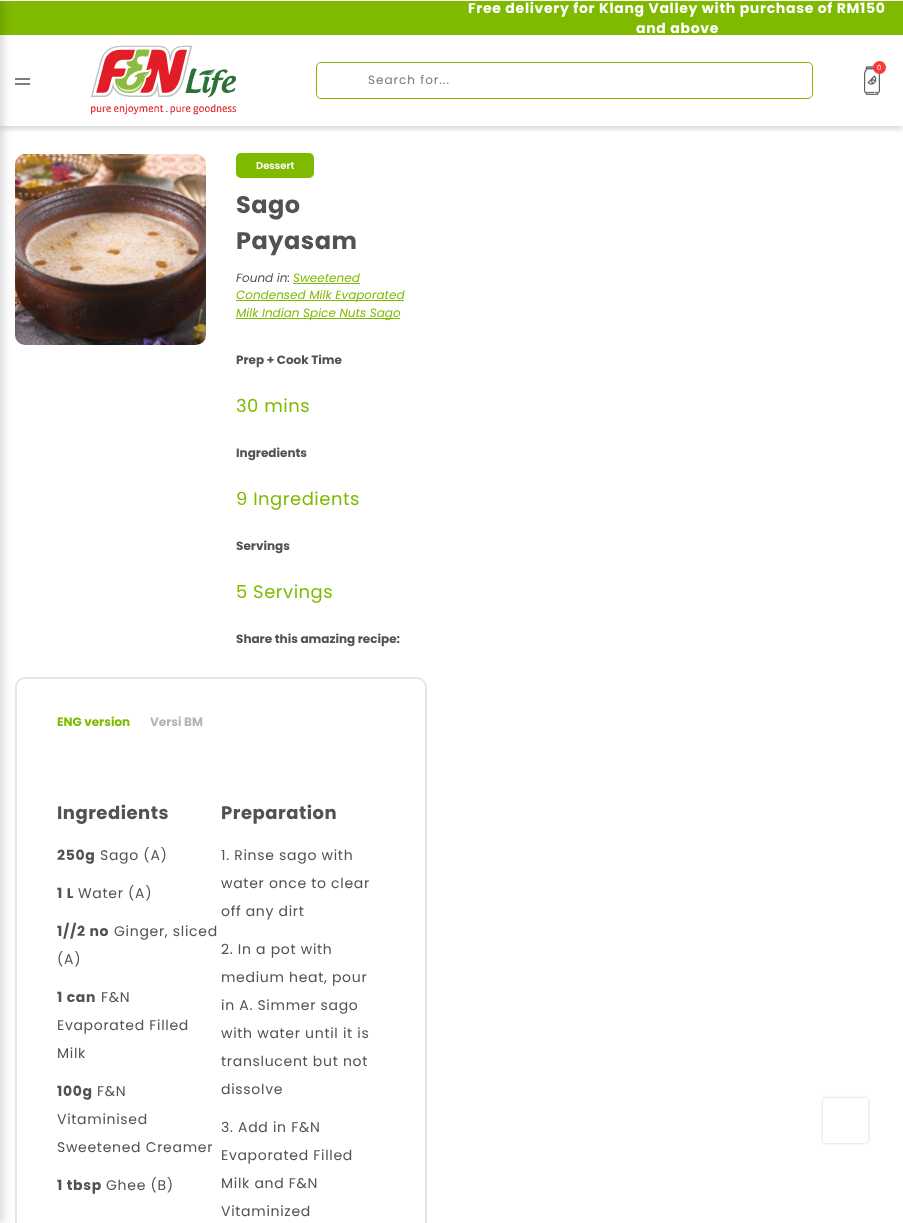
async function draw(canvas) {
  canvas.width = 903
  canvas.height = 1223
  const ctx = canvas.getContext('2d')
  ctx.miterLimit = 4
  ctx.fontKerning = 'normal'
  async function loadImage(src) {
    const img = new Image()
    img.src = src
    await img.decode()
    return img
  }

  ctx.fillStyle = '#fff'
  ctx.fillRect(0, 0, 903, 1223)
  ctx.save()
  ctx.beginPath()
  ctx.rect(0, 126, 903, 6)
  ctx.clip()
  ctx.fillStyle = '#00000029'
  ctx.filter = 'blur(3px)'
  ctx.beginPath()
  ctx.rect(0, 3, 903, 126)
  ctx.fill()
  ctx.filter = 'none'
  ctx.restore()
  ctx.fillStyle = '#7fba00'
  ctx.fillRect(0, 1, 903, 34)
  ctx.letterSpacing = '0.7px'
  ctx.font = 'bold 14px Poppins'
  ctx.fillStyle = '#fff'
  ctx.fillText('Free delivery for Klang Valley with purchase of RM150', 468, 13)
  ctx.fillText('and above', 636, 33)
  ctx.fillStyle = '#7d7d7d'
  ctx.fillRect(15, 78, 15, 2)
  ctx.fillRect(15, 83, 15, 2)
  ctx.drawImage(await loadImage('image2.png'), 15, 154, 191, 191)
  ctx.beginPath()
  ctx.roundRect(16, 678, 410, 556, 9)
  ctx.strokeStyle = '#e5e5e5'
  ctx.lineWidth = 2
  ctx.stroke()
  ctx.fillStyle = '#00000029'
  ctx.filter = 'blur(5px)'
  ctx.beginPath()
  ctx.rect(-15, 0, 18, 1223)
  ctx.fill()
  ctx.filter = 'none'
  ctx.drawImage(await loadImage('image0.png'), 91, 45, 145, 70)
  ctx.drawImage(await loadImage('image1.png'), 864, 65, 16, 30)
  ctx.fillStyle = '#f73a34'
  ctx.beginPath()
  ctx.arc(879.5, 67.5, 6.5, 0, 2 * Math.PI)
  ctx.fill()
  ctx.letterSpacing = '0px'
  ctx.font = '7px Poppins'
  ctx.fillStyle = '#fff'
  ctx.fillText('0', 877, 70)
  ctx.beginPath()
  ctx.roundRect(316.5, 62.5, 496, 36, 4.5)
  ctx.strokeStyle = '#7fba00'
  ctx.lineWidth = 1
  ctx.stroke()
  ctx.letterSpacing = '1px'
  ctx.font = '12px Poppins'
  ctx.fillStyle = '#777'
  ctx.fillText('Search for...', 368, 84)
  ctx.fillStyle = '#7fba00'
  ctx.beginPath()
  ctx.roundRect(236, 153, 78, 25, 5)
  ctx.fill()
  ctx.letterSpacing = '0px'
  ctx.font = '600 10px Poppins'
  ctx.fillStyle = '#fff'
  ctx.fillText('Dessert', 256, 169)
  ctx.letterSpacing = '0.5px'
  ctx.font = 'bold 24px Poppins'
  ctx.fillStyle = '#525252'
  ctx.fillText('Sago', 236, 213)
  ctx.fillText('Payasam', 236, 249)
  ctx.letterSpacing = '0px'
  ctx.font = 'italic 12px Poppins'
  ctx.fillText('Found in:', 236, 282)
  ctx.fillStyle = '#7fba00'
  ctx.fillText('Sweetened', 293, 282)
  ctx.fillRect(293, 283, 67, 1)
  ctx.fillRect(236, 300, 168, 1)
  ctx.fillText('Condensed Milk Evaporated', 236, 299)
  ctx.fillRect(236, 318, 164, 1)
  ctx.fillText('Milk Indian Spice Nuts Sago', 236, 317)
  ctx.font = 'bold 12px Poppins'
  ctx.fillStyle = '#525252'
  ctx.fillText('Prep + Cook Time', 236, 364)
  ctx.letterSpacing = '0.5px'
  ctx.font = '18px Poppins'
  ctx.fillStyle = '#7fba00'
  ctx.fillText('30 mins', 236, 412)
  ctx.letterSpacing = '0px'
  ctx.font = 'bold 12px Poppins'
  ctx.fillStyle = '#525252'
  ctx.fillText('Ingredients', 236, 457)
  ctx.letterSpacing = '0.5px'
  ctx.font = '18px Poppins'
  ctx.fillStyle = '#7fba00'
  ctx.fillText('9 Ingredients', 236, 505)
  ctx.letterSpacing = '0px'
  ctx.font = 'bold 12px Poppins'
  ctx.fillStyle = '#525252'
  ctx.fillText('Servings', 236, 550)
  ctx.letterSpacing = '0.5px'
  ctx.font = '18px Poppins'
  ctx.fillStyle = '#7fba00'
  ctx.fillText('5 Servings', 236, 598)
  ctx.letterSpacing = '0px'
  ctx.font = 'bold 12px Poppins'
  ctx.fillStyle = '#525252'
  ctx.fillText('Share this amazing recipe:', 236, 643)
  ctx.fillStyle = '#7fba00'
  ctx.fillText('ENG version', 57, 726)
  ctx.fillStyle = '#b4b4b4'
  ctx.fillText('Versi BM', 150, 726)
  ctx.letterSpacing = '0.5px'
  ctx.font = 'bold 18px Poppins'
  ctx.fillStyle = '#525252'
  ctx.fillText('Ingredients', 57, 819)
  ctx.letterSpacing = '0.7px'
  ctx.font = 'bold 14px Poppins'
  ctx.fillText('250g', 57, 860)
  ctx.font = '14px Poppins'
  ctx.fillText('Sago (A)', 100, 860)
  ctx.font = 'bold 14px Poppins'
  ctx.fillText('1 L', 57, 898)
  ctx.font = '14px Poppins'
  ctx.fillText('Water (A)', 78, 898)
  ctx.font = 'bold 14px Poppins'
  ctx.fillText('1//2 no', 57, 936)
  ctx.font = '14px Poppins'
  ctx.fillText('Ginger, sliced', 114, 936)
  ctx.fillText('(A)', 57, 964)
  ctx.font = 'bold 14px Poppins'
  ctx.fillText('1 can', 57, 1002)
  ctx.font = '14px Poppins'
  ctx.fillText('F&N', 101, 1002)
  ctx.fillText('Evaporated Filled', 57, 1030)
  ctx.fillText('Milk', 57, 1058)
  ctx.font = 'bold 14px Poppins'
  ctx.fillText('100g', 57, 1096)
  ctx.font = '14px Poppins'
  ctx.fillText('F&N', 97, 1096)
  ctx.fillText('Vitaminised', 57, 1124)
  ctx.fillText('Sweetened Creamer', 57, 1152)
  ctx.font = 'bold 14px Poppins'
  ctx.fillText('1 tbsp', 57, 1190)
  ctx.font = '14px Poppins'
  ctx.fillText('Ghee (B)', 106, 1190)
  ctx.letterSpacing = '0.5px'
  ctx.font = 'bold 18px Poppins'
  ctx.fillText('Preparation', 221, 819)
  ctx.letterSpacing = '0.7px'
  ctx.font = '14px Poppins'
  ctx.fillText('1. Rinse sago with', 221, 860)
  ctx.fillText('water once to clear', 221, 888)
  ctx.fillText('off any dirt', 221, 916)
  ctx.fillText('2. In a pot with', 221, 954)
  ctx.fillText('medium heat, pour', 221, 982)
  ctx.fillText('in A. Simmer sago', 221, 1010)
  ctx.fillText('with water until it is', 221, 1038)
  ctx.fillText('translucent but not', 221, 1066)
  ctx.fillText('dissolve', 221, 1094)
  ctx.fillText('3. Add in F&N', 221, 1132)
  ctx.fillText('Evaporated Filled', 221, 1160)
  ctx.fillText('Milk and F&N', 221, 1188)
  ctx.fillText('Vitaminized', 221, 1216)
  ctx.fillStyle = '#00000033'
  ctx.filter = 'blur(1.5px)'
  ctx.beginPath()
  ctx.roundRect(823, 1098, 45, 45, 3)
  ctx.fill()
  ctx.filter = 'none'
  ctx.fillStyle = '#fff'
  ctx.beginPath()
  ctx.roundRect(823, 1098, 45, 45, 3)
  ctx.fill()
}

draw(document.querySelector('canvas'))
